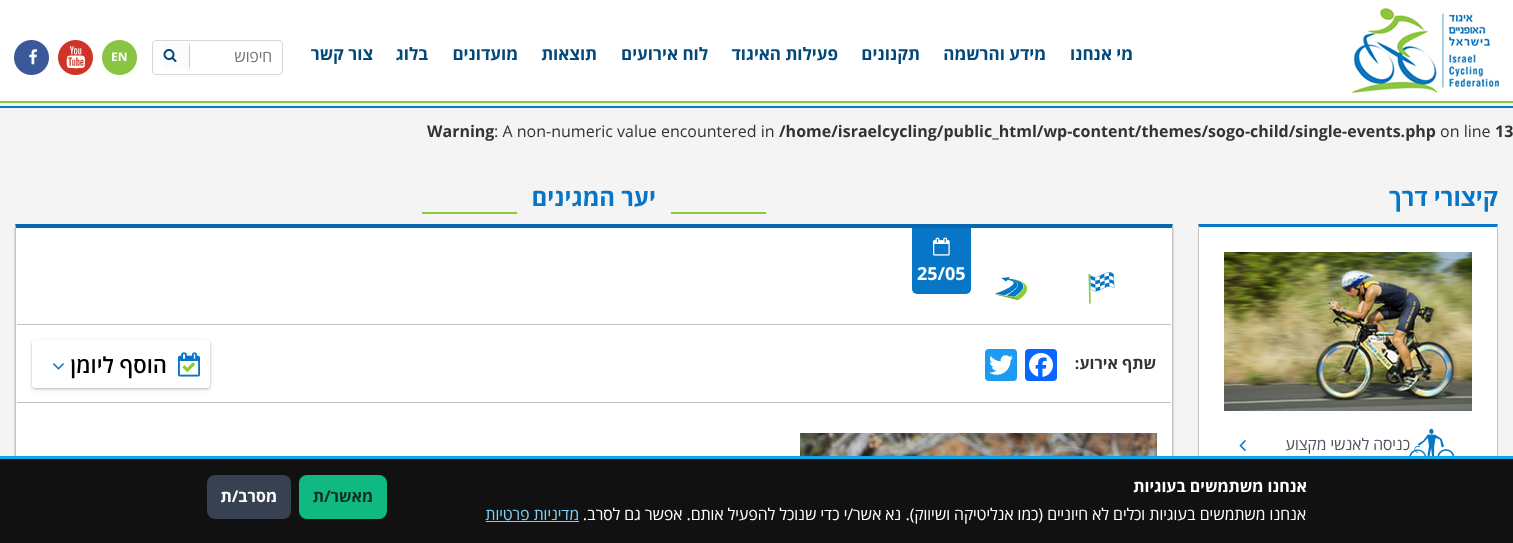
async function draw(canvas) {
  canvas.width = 1513
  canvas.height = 543
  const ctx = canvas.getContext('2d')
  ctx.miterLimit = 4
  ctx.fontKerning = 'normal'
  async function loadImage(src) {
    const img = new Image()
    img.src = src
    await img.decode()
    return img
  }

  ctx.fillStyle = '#f4f4f4'
  ctx.fillRect(0, 0, 1513, 543)
  ctx.fillStyle = '#fff'
  ctx.fillRect(0, 0, 1513, 101)
  ctx.fillStyle = '#89cc37'
  ctx.fillRect(0, 101, 1513, 2)
  ctx.drawImage(await loadImage('image0.png'), 1351, 8, 149, 87)
  ctx.direction = 'rtl'
  ctx.font = 'bold 17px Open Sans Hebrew'
  ctx.fillStyle = '#02487a'
  ctx.fillText('מי אנחנו', 1133, 60)
  ctx.fillText('מידע והרשמה', 1046, 60)
  ctx.fillText('תקנונים', 920, 60)
  ctx.fillText('פעילות האיגוד', 838, 60)
  ctx.fillText('לוח אירועים', 708, 60)
  ctx.fillText('תוצאות', 597, 60)
  ctx.fillText('מועדונים', 518, 60)
  ctx.fillText('בלוג', 428, 60)
  ctx.fillText('צור קשר', 373, 60)
  ctx.beginPath()
  ctx.roundRect(152.5, 40.5, 130, 34, 3.5)
  ctx.strokeStyle = '#d7d7d7'
  ctx.stroke()
  ctx.font = '16px Open Sans Hebrew'
  ctx.fillStyle = '#757575'
  ctx.fillText('חיפוש', 272, 62)
  ctx.drawImage(await loadImage('image1.png'), 163, 43, 27, 26)
  ctx.drawImage(await loadImage('image2.png'), 102, 40, 35, 35)
  ctx.drawImage(await loadImage('image3.png'), 58, 40, 35, 35)
  ctx.drawImage(await loadImage('image4.png'), 14, 40, 35, 35)
  ctx.fillStyle = '#0776c7'
  ctx.fillRect(0, 106, 1513, 2)
  ctx.direction = 'ltr'
  ctx.font = 'bold 16px Open Sans Hebrew'
  ctx.fillStyle = '#333'
  ctx.fillText('13', 1495, 137)
  ctx.font = '16px Open Sans Hebrew'
  ctx.fillText('on line', 1440, 137)
  ctx.font = 'bold 16px Open Sans Hebrew'
  ctx.fillText('/home/israelcycling/public_html/wp-content/themes/sogo-child/single-events.php', 779, 137)
  ctx.font = '16px Open Sans Hebrew'
  ctx.fillText(': A non-numeric value encountered in', 494, 137)
  ctx.font = 'bold 16px Open Sans Hebrew'
  ctx.fillText('Warning', 427, 137)
  ctx.direction = 'rtl'
  ctx.font = 'bold 24px Open Sans Hebrew'
  ctx.fillStyle = '#0776c7'
  ctx.fillText('קיצורי דרך', 1498, 206)
  ctx.fillStyle = '#fff'
  ctx.fillRect(1199, 227, 298, 229)
  ctx.fillStyle = '#0776c7'
  ctx.beginPath()
  ctx.moveTo(1198, 224)
  ctx.lineTo(1498, 224)
  ctx.lineTo(1497, 227)
  ctx.lineTo(1199, 227)
  ctx.closePath()
  ctx.fill()
  ctx.fillStyle = '#c2c2c2'
  ctx.beginPath()
  ctx.moveTo(1498, 224)
  ctx.lineTo(1498, 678)
  ctx.lineTo(1497, 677)
  ctx.lineTo(1497, 227)
  ctx.closePath()
  ctx.fill()
  ctx.beginPath()
  ctx.moveTo(1198, 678)
  ctx.lineTo(1198, 224)
  ctx.lineTo(1199, 227)
  ctx.lineTo(1199, 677)
  ctx.closePath()
  ctx.fill()
  ctx.drawImage(await loadImage('image5.png'), 1224, 252, 248, 159)
  ctx.font = '16px Open Sans Hebrew'
  ctx.fillStyle = '#4f5561'
  ctx.fillText('כניסה לאנשי מקצוע', 1410, 450)
  ctx.drawImage(await loadImage('image6.png'), 1409, 428, 46, 28)
  ctx.drawImage(await loadImage('image7.png'), 1239, 440, 7, 12)
  ctx.font = 'bold 24px Open Sans Hebrew'
  ctx.fillStyle = '#0776c7'
  ctx.fillText('יער המגינים', 656, 206)
  ctx.fillStyle = '#89cc37'
  ctx.fillRect(671, 212, 95, 2)
  ctx.fillRect(422, 212, 95, 2)
  ctx.fillStyle = '#00000040'
  ctx.filter = 'blur(1px)'
  ctx.beginPath()
  ctx.rect(15, 227, 1158, 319)
  ctx.fill()
  ctx.filter = 'none'
  ctx.fillStyle = '#fff'
  ctx.fillRect(16, 228, 1156, 228)
  ctx.fillStyle = '#0567af'
  ctx.beginPath()
  ctx.moveTo(15, 224)
  ctx.lineTo(1173, 224)
  ctx.lineTo(1172, 228)
  ctx.lineTo(16, 228)
  ctx.closePath()
  ctx.fill()
  ctx.fillStyle = '#c2c2c2'
  ctx.beginPath()
  ctx.moveTo(1173, 224)
  ctx.lineTo(1173, 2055)
  ctx.lineTo(1172, 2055)
  ctx.lineTo(1172, 228)
  ctx.closePath()
  ctx.fill()
  ctx.beginPath()
  ctx.moveTo(15, 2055)
  ctx.lineTo(15, 224)
  ctx.lineTo(16, 228)
  ctx.lineTo(16, 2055)
  ctx.closePath()
  ctx.fill()
  ctx.fillRect(17, 324, 1154, 1)
  ctx.drawImage(await loadImage('image8.png'), 1088, 272, 27, 32)
  ctx.drawImage(await loadImage('image9.png'), 995, 277, 32, 23)
  ctx.fillStyle = '#0776c7'
  ctx.beginPath()
  ctx.roundRect(912, 228, 59, 66, [0, 0, 5, 5])
  ctx.fill()
  ctx.drawImage(await loadImage('image10.png'), 933, 237, 17, 19)
  ctx.direction = 'ltr'
  ctx.font = 'bold 18px Open Sans Hebrew'
  ctx.fillStyle = '#fff'
  ctx.fillText('25/05', 917, 280)
  ctx.fillStyle = '#c2c2c2'
  ctx.fillRect(17, 402, 1154, 1)
  ctx.direction = 'rtl'
  ctx.font = 'bold 16px Open Sans Hebrew'
  ctx.fillStyle = '#333'
  ctx.fillText('שתף אירוע:', 1156, 369)
  ctx.fillStyle = '#0866ff'
  ctx.beginPath()
  ctx.roundRect(1025, 349, 32, 32, 4)
  ctx.fill()
  ctx.drawImage(await loadImage('image11.png'), 1029, 353, 24, 24)
  ctx.fillStyle = '#1d9bf0'
  ctx.beginPath()
  ctx.roundRect(985, 349, 32, 32, 4)
  ctx.fill()
  ctx.drawImage(await loadImage('image12.png'), 989, 355, 24, 20)
  ctx.fillStyle = '#00000014'
  ctx.filter = 'blur(1px)'
  ctx.beginPath()
  ctx.roundRect(32, 341, 178, 48, 3)
  ctx.fill()
  ctx.filter = 'none'
  ctx.fillStyle = '#00000012'
  ctx.filter = 'blur(1px)'
  ctx.beginPath()
  ctx.roundRect(32, 341, 178, 48, 3)
  ctx.fill()
  ctx.filter = 'none'
  ctx.fillStyle = '#32325d1a'
  ctx.filter = 'blur(2.5px)'
  ctx.beginPath()
  ctx.roundRect(32, 342, 178, 48, 3)
  ctx.fill()
  ctx.filter = 'none'
  ctx.beginPath()
  ctx.roundRect(32.25, 340.25, 178.5, 48.5, 3.75)
  ctx.strokeStyle = '#32325d2b'
  ctx.lineWidth = 0.5
  ctx.stroke()
  ctx.fillStyle = '#fff'
  ctx.beginPath()
  ctx.roundRect(32, 340, 178, 48, 3)
  ctx.fill()
  ctx.drawImage(await loadImage('image13.png'), 178, 352, 22, 25)
  ctx.font = '600 22px Open Sans'
  ctx.fillStyle = '#000'
  ctx.fillText('הוסף ליומן', 167, 373)
  ctx.drawImage(await loadImage('image14.png'), 52, 363, 12, 7)
  ctx.drawImage(await loadImage('image15.png'), 800, 433, 357, 23)
  ctx.fillStyle = '#111'
  ctx.fillRect(0, 459, 1513, 84)
  ctx.fillStyle = '#0ea5e9'
  ctx.fillRect(0, 456, 1513, 3)
  ctx.font = 'bold 16px Open Sans Hebrew'
  ctx.fillStyle = '#fff'
  ctx.fillText('אנחנו משתמשים בעוגיות', 1307, 492)
  ctx.font = '16px Open Sans Hebrew'
  ctx.fillText('אנחנו משתמשים בעוגיות וכלים לא חיוניים (כמו אנליטיקה ושיווק). נא אשר/י כדי שנוכל להפעיל אותם. אפשר גם לסרב.', 1306, 520)
  ctx.fillStyle = '#7dd3fc'
  ctx.fillText('מדיניות פרטיות', 579, 520)
  ctx.fillRect(486, 521, 93, 1)
  ctx.fillStyle = '#10b981'
  ctx.beginPath()
  ctx.roundRect(299, 475, 88, 44, 8)
  ctx.fill()
  ctx.font = 'bold 16px Open Sans Hebrew'
  ctx.fillStyle = '#0b2d23'
  ctx.fillText('מאשר/ת', 373, 502)
  ctx.fillStyle = '#374151'
  ctx.beginPath()
  ctx.roundRect(207, 475, 84, 44, 8)
  ctx.fill()
  ctx.fillStyle = '#fff'
  ctx.fillText('מסרב/ת', 277, 502)
}

draw(document.querySelector('canvas'))
